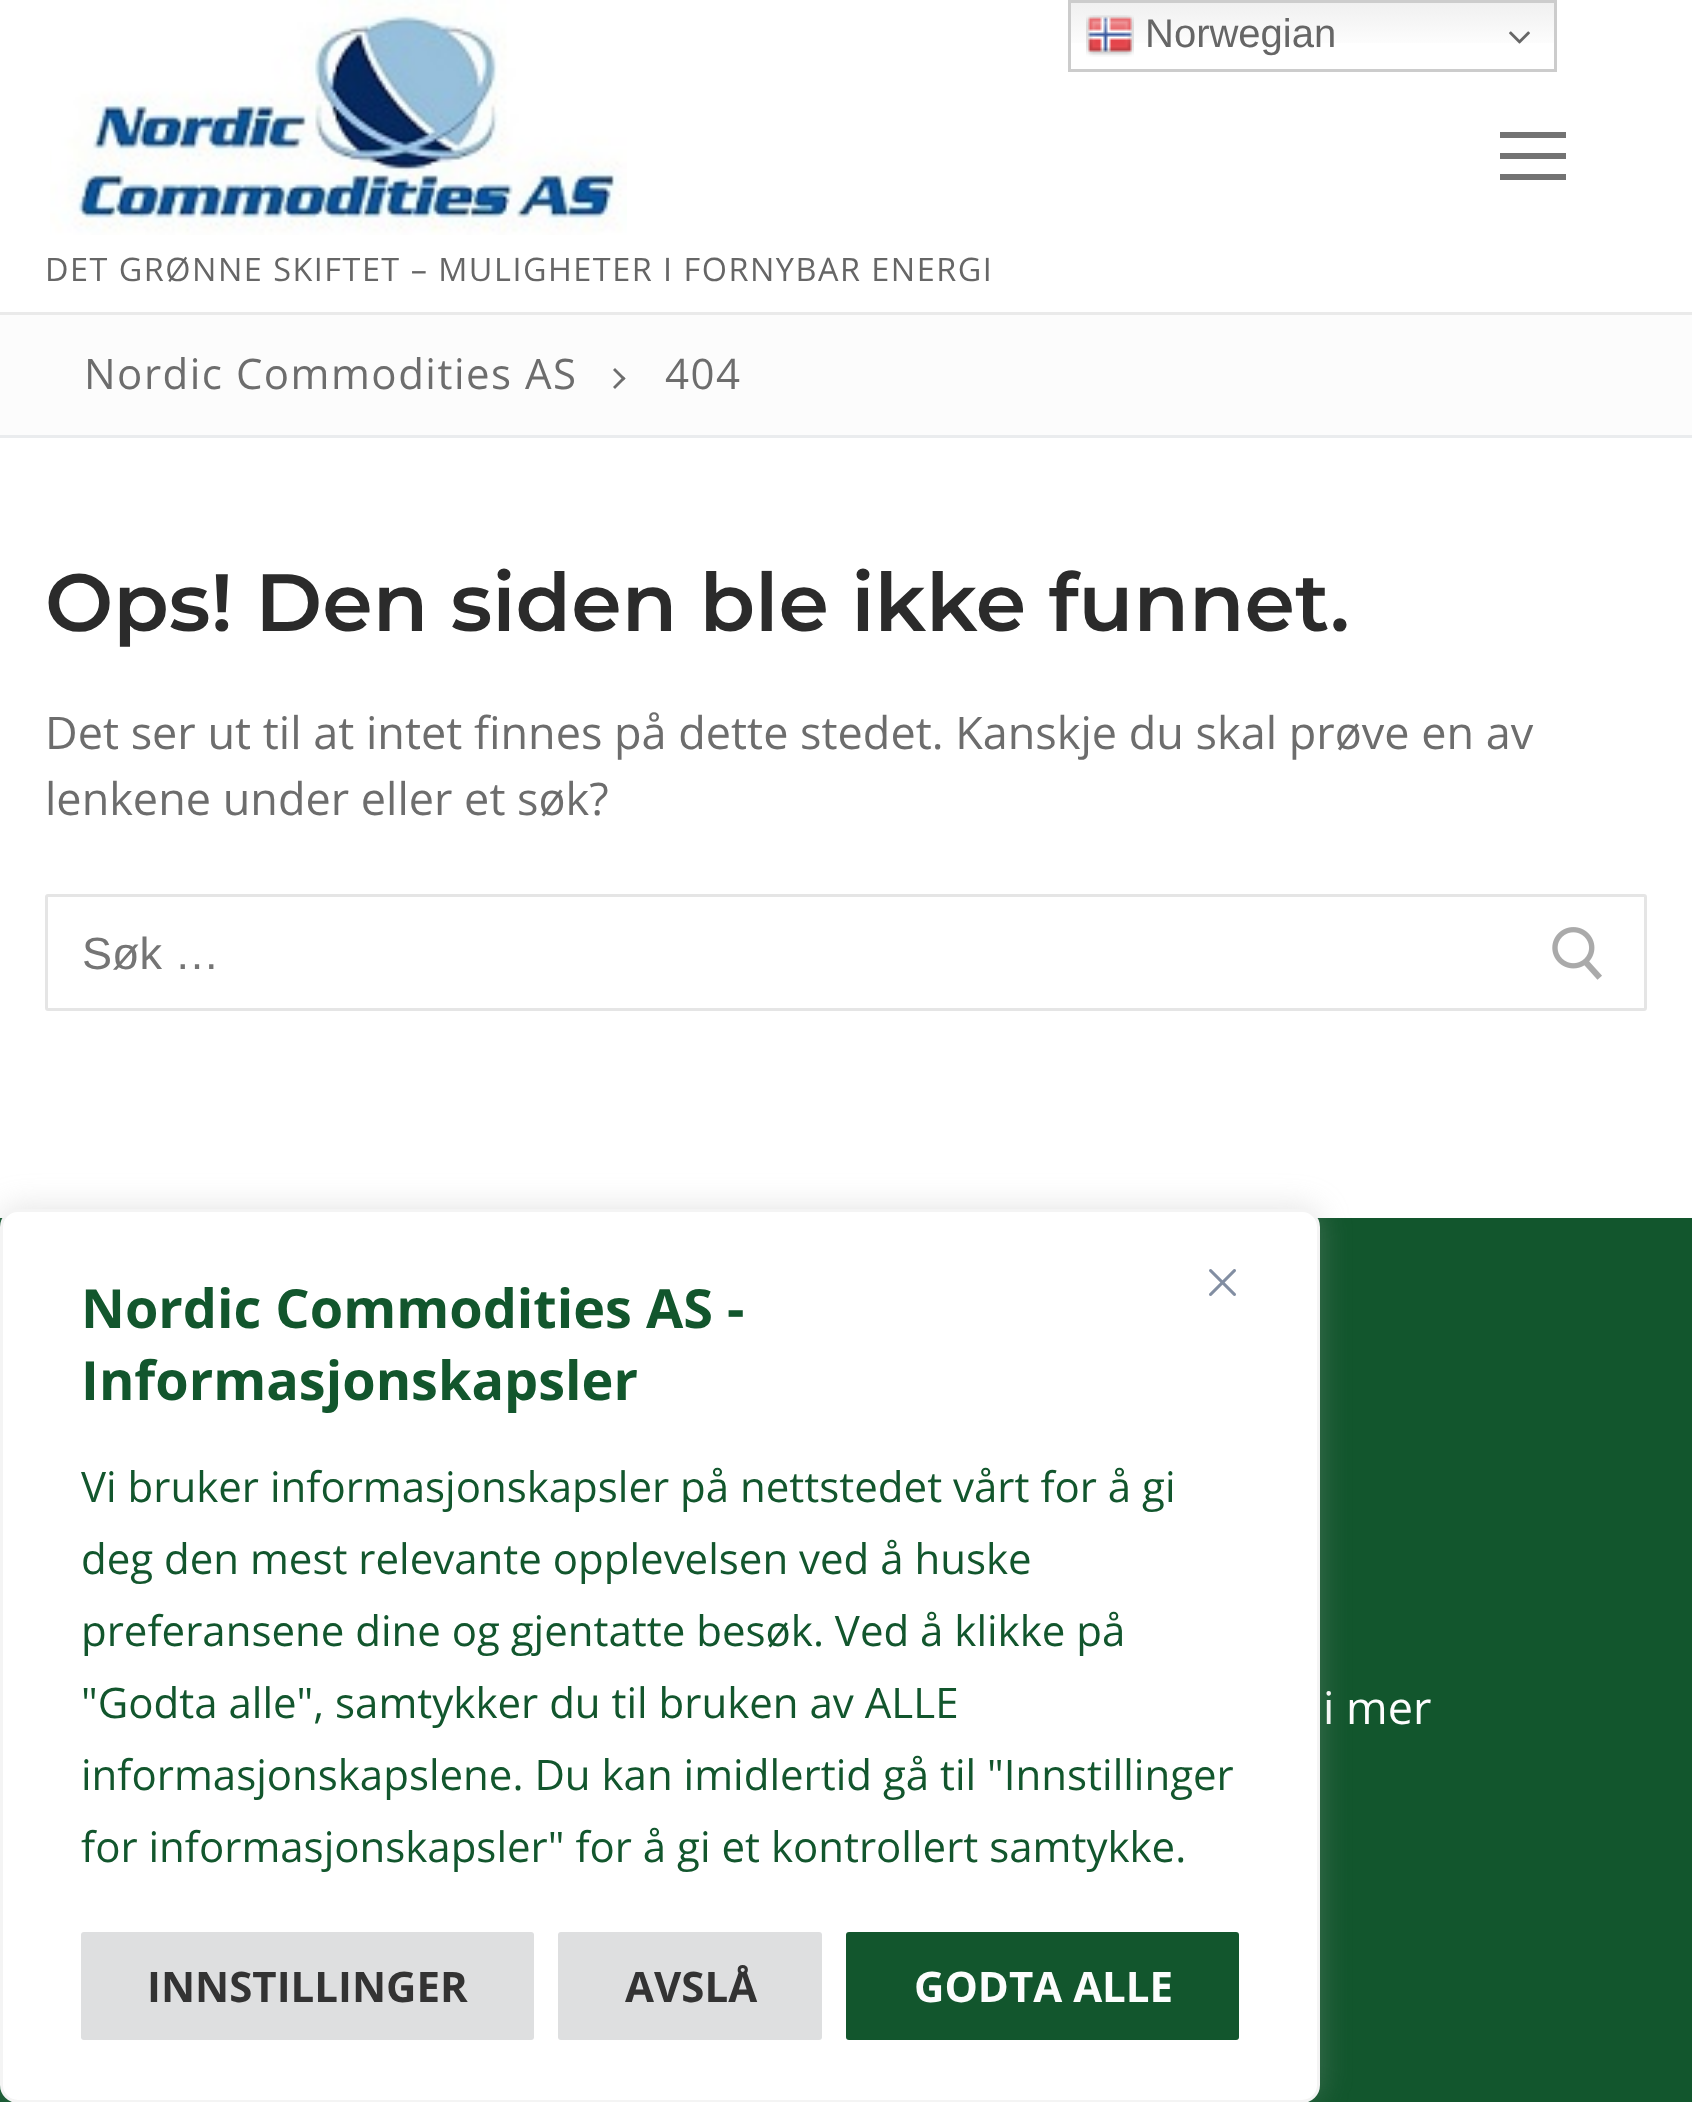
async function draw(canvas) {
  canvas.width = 1692
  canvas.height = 2102
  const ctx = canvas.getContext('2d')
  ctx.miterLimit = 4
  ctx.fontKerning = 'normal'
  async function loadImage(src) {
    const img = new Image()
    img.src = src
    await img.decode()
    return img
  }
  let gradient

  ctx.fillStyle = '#fff'
  ctx.fillRect(0, 0, 1692, 2102)
  gradient = ctx.createLinearGradient(1313, 0, 1313, 72)
  gradient.addColorStop(0, '#efefef')
  gradient.addColorStop(0.7, '#fff')
  ctx.fillStyle = gradient
  ctx.fillRect(1071, 3, 483, 40)
  ctx.strokeStyle = '#ccc'
  ctx.lineWidth = 3
  ctx.strokeRect(1069.5, 1.5, 486, 69)
  ctx.drawImage(await loadImage('image0.png'), 1086, 15, 48, 42)
  ctx.font = '40px Liberation Sans'
  ctx.fillStyle = '#666'
  ctx.fillText('Norwegian', 1145, 47)
  ctx.drawImage(await loadImage('image1.png'), 1509, 31, 21, 13)
  ctx.fillStyle = '#eaeaea'
  ctx.fillRect(0, 312, 1692, 3)
  ctx.fillStyle = '#737373'
  ctx.fillRect(1500, 153, 66, 6)
  ctx.fillRect(1500, 132, 66, 6)
  ctx.fillRect(1500, 174, 66, 6)
  ctx.drawImage(await loadImage('image2.png'), 50, 0, 577, 235)
  ctx.letterSpacing = '1.5px'
  ctx.font = '32.4px Open Sans'
  ctx.fillStyle = '#666'
  ctx.fillText('DET GRØNNE SKIFTET – MULIGHETER I FORNYBAR ENERGI', 45, 281)
  ctx.fillStyle = '#fcfcfc'
  ctx.fillRect(0, 315, 1692, 120)
  ctx.fillStyle = '#eaecee'
  ctx.fillRect(0, 435, 1692, 3)
  ctx.font = '42px Open Sans'
  ctx.fillStyle = '#6d6d6d'
  ctx.fillText('Nordic Commodities AS', 84, 389)
  ctx.beginPath()
  ctx.moveTo(625.5, 378.5)
  ctx.lineTo(615, 389)
  ctx.lineTo(613, 387)
  ctx.lineTo(623.5, 376.5)
  ctx.closePath()
  ctx.fill()
  ctx.beginPath()
  ctx.moveTo(625.5, 378.5)
  ctx.lineTo(623.5, 380.5)
  ctx.lineTo(613, 370)
  ctx.lineTo(615, 368)
  ctx.closePath()
  ctx.fill()
  ctx.fillText('404', 665, 389)
  ctx.letterSpacing = '0px'
  ctx.font = '600 81px Montserrat'
  ctx.fillStyle = '#2b2b2b'
  ctx.fillText('Ops! Den siden ble ikke funnet.', 45, 631)
  ctx.font = '45px Open Sans'
  ctx.fillStyle = '#6d6d6d'
  ctx.fillText('Det ser ut til at intet finnes på dette stedet. Kanskje du skal prøve en av', 45, 749)
  ctx.fillText('lenkene under eller et søk?', 45, 815)
  ctx.beginPath()
  ctx.roundRect(46.5, 895.5, 1599, 114, 1.5)
  ctx.strokeStyle = '#e5e5e5'
  ctx.stroke()
  ctx.font = '45px Liberation Sans'
  ctx.fillStyle = '#757575'
  ctx.fillText('Søk …', 82, 969)
  ctx.drawImage(await loadImage('image3.png'), 1552, 927, 50, 53)
  ctx.fillStyle = '#12562d'
  ctx.fillRect(0, 1218, 1692, 884)
  ctx.font = '45px Open Sans'
  ctx.fillStyle = '#fdfdfd'
  ctx.fillText('i mer', 1323, 1724)
  ctx.fillStyle = '#acabab4d'
  ctx.filter = 'blur(15px)'
  ctx.beginPath()
  ctx.roundRect(0, 1206, 1320, 894, 18)
  ctx.fill()
  ctx.filter = 'none'
  ctx.fillStyle = '#fff'
  ctx.beginPath()
  ctx.roundRect(1.5, 1210.5, 1317, 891, 16.5)
  ctx.fill()
  ctx.strokeStyle = '#f4f4f4'
  ctx.stroke()
  ctx.drawImage(await loadImage('image4.png'), 1209, 1269, 27, 27)
  ctx.font = 'bold 54px Open Sans'
  ctx.fillStyle = '#12562d'
  ctx.fillText('Nordic Commodities AS -', 81, 1328)
  ctx.fillText('Informasjonskapsler', 81, 1400)
  ctx.font = '42px Open Sans'
  ctx.fillText('Vi bruker informasjonskapsler på nettstedet vårt for å gi', 81, 1502)
  ctx.fillText('deg den mest relevante opplevelsen ved å huske', 81, 1574)
  ctx.fillText('preferansene dine og gjentatte besøk. Ved å klikke på', 81, 1646)
  ctx.fillText('"Godta alle", samtykker du til bruken av ALLE', 81, 1718)
  ctx.fillText('informasjonskapslene. Du kan imidlertid gå til "Innstillinger', 81, 1790)
  ctx.fillText('for informasjonskapsler" for å gi et kontrollert samtykke.', 81, 1862)
  ctx.fillStyle = '#dedfe0'
  ctx.beginPath()
  ctx.roundRect(81, 1932, 453, 108, 3)
  ctx.fill()
  ctx.font = 'bold 42px Open Sans'
  ctx.fillStyle = '#333'
  ctx.fillText('INNSTILLINGER', 147, 2002)
  ctx.fillStyle = '#dedfe0'
  ctx.beginPath()
  ctx.roundRect(558, 1932, 264, 108, 3)
  ctx.fill()
  ctx.fillStyle = '#333'
  ctx.fillText('AVSLÅ', 625, 2002)
  ctx.fillStyle = '#12562d'
  ctx.beginPath()
  ctx.roundRect(846, 1932, 393, 108, 3)
  ctx.fill()
  ctx.fillStyle = '#fdfdfd'
  ctx.fillText('GODTA ALLE', 914, 2002)
}

draw(document.querySelector('canvas'))
